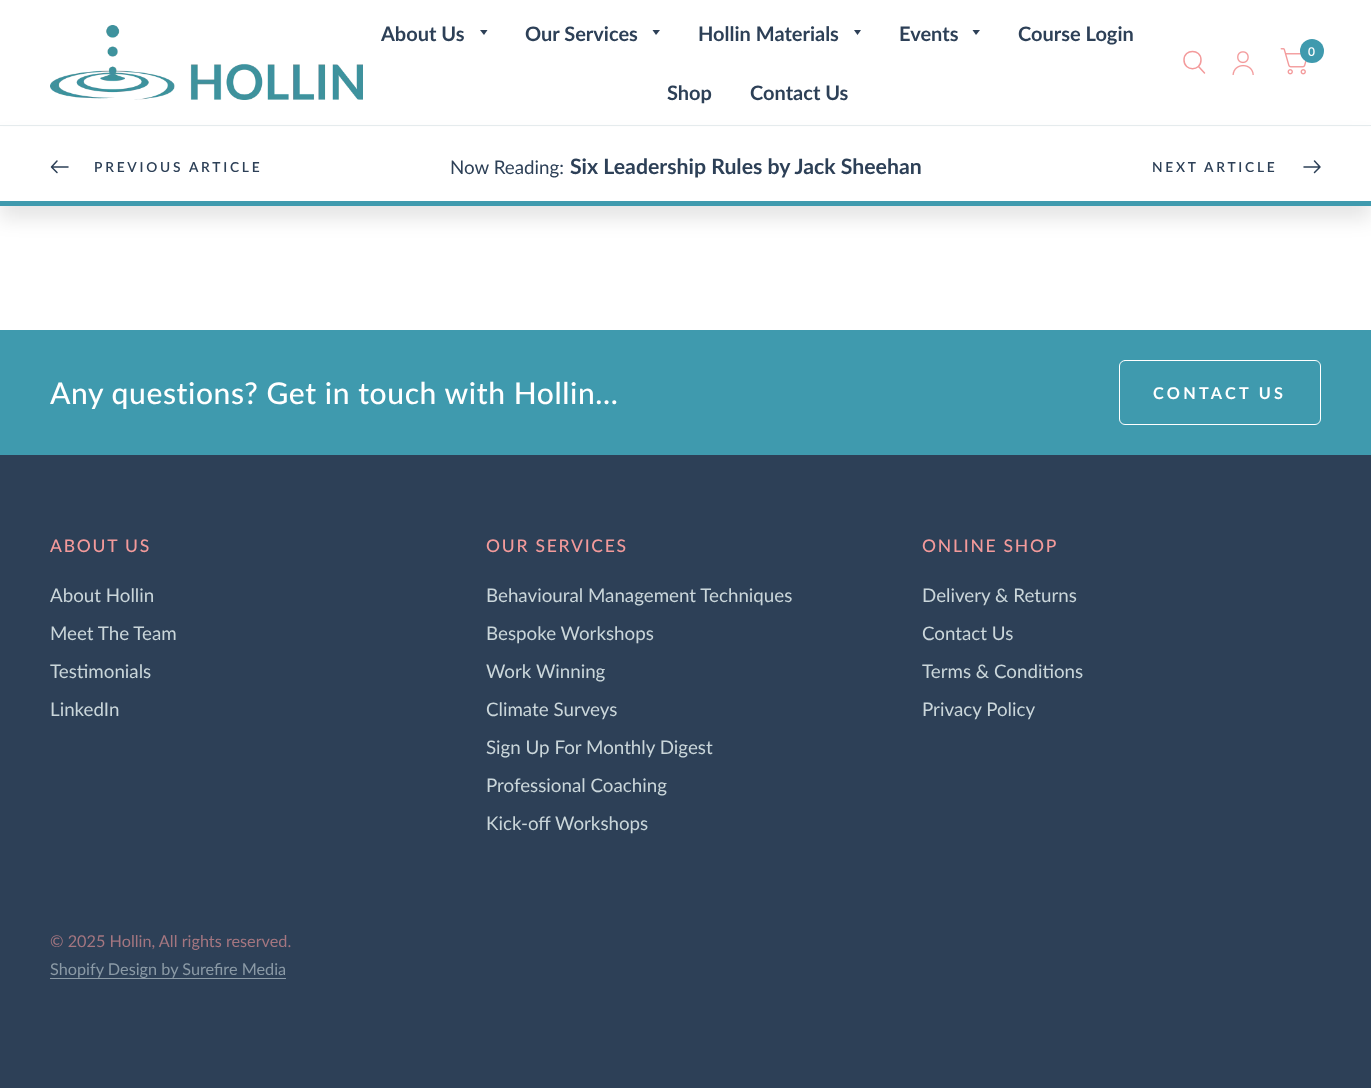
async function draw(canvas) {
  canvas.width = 1371
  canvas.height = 1088
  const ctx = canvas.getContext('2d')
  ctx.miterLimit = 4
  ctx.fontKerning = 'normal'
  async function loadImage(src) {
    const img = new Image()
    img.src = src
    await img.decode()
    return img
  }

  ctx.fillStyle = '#fff'
  ctx.fillRect(0, 0, 1371, 1088)
  ctx.fillStyle = '#0000001a'
  ctx.filter = 'blur(9.5px)'
  ctx.beginPath()
  ctx.rect(0, 139, 1371, 80)
  ctx.fill()
  ctx.filter = 'none'
  ctx.fillStyle = '#e5ebed'
  ctx.fillRect(0, 125, 1371, 1)
  ctx.drawImage(await loadImage('image0.png'), 50, 25, 313, 75)
  ctx.font = 'bold 20px Lato'
  ctx.fillStyle = '#2d4057'
  ctx.fillText('About Us', 381, 41)
  ctx.beginPath()
  ctx.moveTo(480, 30)
  ctx.lineTo(487.5, 30)
  ctx.lineTo(484, 35)
  ctx.closePath()
  ctx.fill()
  ctx.fillText('Our Services', 525, 41)
  ctx.beginPath()
  ctx.moveTo(652.5, 30)
  ctx.lineTo(660, 30)
  ctx.lineTo(656, 35)
  ctx.closePath()
  ctx.fill()
  ctx.fillText('Hollin Materials', 698, 41)
  ctx.beginPath()
  ctx.moveTo(854, 30)
  ctx.lineTo(861, 30)
  ctx.lineTo(857.5, 35)
  ctx.closePath()
  ctx.fill()
  ctx.fillText('Events', 899, 41)
  ctx.beginPath()
  ctx.moveTo(972.5, 30)
  ctx.lineTo(980, 30)
  ctx.lineTo(976, 35)
  ctx.closePath()
  ctx.fill()
  ctx.fillText('Course Login', 1018, 41)
  ctx.fillText('Shop', 667, 100)
  ctx.fillText('Contact Us', 750, 100)
  ctx.beginPath()
  ctx.moveTo(1199, 67)
  ctx.lineTo(1204.5, 73)
  ctx.moveTo(1201, 60)
  ctx.bezierCurveTo(1201, 71.5, 1184, 71.5, 1184, 60)
  ctx.bezierCurveTo(1184, 48.5, 1201, 48.5, 1201, 60)
  ctx.closePath()
  ctx.strokeStyle = '#f39a9b'
  ctx.lineWidth = 1.5
  ctx.lineCap = 'round'
  ctx.lineJoin = 'round'
  ctx.stroke()
  ctx.drawImage(await loadImage('image1.png'), 1232, 51, 22, 24)
  ctx.drawImage(await loadImage('image2.png'), 1280, 48, 27, 27)
  ctx.fillStyle = '#3f9aae'
  ctx.beginPath()
  ctx.arc(1312, 51, 12, 0, 2 * Math.PI)
  ctx.fill()
  ctx.font = '600 12px Lato'
  ctx.fillStyle = '#fff'
  ctx.fillText('0', 1308, 56)
  ctx.fillRect(0, 127, 1371, 74)
  ctx.beginPath()
  ctx.moveTo(68, 167)
  ctx.lineTo(53, 167)
  ctx.moveTo(57, 161)
  ctx.lineTo(51.5, 167)
  ctx.lineTo(57, 172.5)
  ctx.strokeStyle = '#2d4057'
  ctx.stroke()
  ctx.letterSpacing = '2.75px'
  ctx.font = '600 13.75px Lato'
  ctx.fillStyle = '#2d4057'
  ctx.fillText('PREVIOUS ARTICLE', 94, 172)
  ctx.letterSpacing = '0px'
  ctx.font = '18.75px Lato'
  ctx.fillText('Now Reading:', 450, 174)
  ctx.font = 'bold 21.25px Lato'
  ctx.fillText('Six Leadership Rules by Jack Sheehan', 570, 174)
  ctx.letterSpacing = '2.75px'
  ctx.font = '600 13.75px Lato'
  ctx.fillText('NEXT ARTICLE', 1152, 172)
  ctx.beginPath()
  ctx.moveTo(1304, 167)
  ctx.lineTo(1319, 167)
  ctx.moveTo(1314.5, 161)
  ctx.lineTo(1320, 167)
  ctx.lineTo(1314.5, 172.5)
  ctx.stroke()
  ctx.fillStyle = '#3f9aae'
  ctx.fillRect(0, 201, 1371, 5)
  ctx.fillRect(0, 330, 1371, 125)
  ctx.letterSpacing = '0.6px'
  ctx.font = '500 30px Lato'
  ctx.fillStyle = '#fff'
  ctx.fillText('Any questions? Get in touch with Hollin...', 50, 404)
  ctx.beginPath()
  ctx.roundRect(1119.5, 360.5, 201, 64, 5.5)
  ctx.strokeStyle = '#fff'
  ctx.lineWidth = 1
  ctx.lineJoin = 'miter'
  ctx.stroke()
  ctx.letterSpacing = '3.25px'
  ctx.font = 'bold 16.25px Lato'
  ctx.fillText('CONTACT US', 1153, 399)
  ctx.fillStyle = '#2d4057'
  ctx.fillRect(0, 455, 1371, 633)
  ctx.letterSpacing = '1.75px'
  ctx.font = '500 17.5px Lato'
  ctx.fillStyle = '#f39a9b'
  ctx.fillText('ABOUT US', 50, 552)
  ctx.letterSpacing = '0px'
  ctx.font = '18.75px Lato'
  ctx.fillStyle = '#cad6da'
  ctx.fillText('About Hollin', 50, 602)
  ctx.fillText('Meet The Team', 50, 640)
  ctx.fillText('Testimonials', 50, 678)
  ctx.fillText('LinkedIn', 50, 716)
  ctx.letterSpacing = '1.75px'
  ctx.font = '500 17.5px Lato'
  ctx.fillStyle = '#f39a9b'
  ctx.fillText('OUR SERVICES', 486, 552)
  ctx.letterSpacing = '0px'
  ctx.font = '18.75px Lato'
  ctx.fillStyle = '#cad6da'
  ctx.fillText('Behavioural Management Techniques', 486, 602)
  ctx.fillText('Bespoke Workshops', 486, 640)
  ctx.fillText('Work Winning', 486, 678)
  ctx.fillText('Climate Surveys', 486, 716)
  ctx.fillText('Sign Up For Monthly Digest', 486, 754)
  ctx.fillText('Professional Coaching', 486, 792)
  ctx.fillText('Kick-off Workshops', 486, 830)
  ctx.letterSpacing = '1.75px'
  ctx.font = '500 17.5px Lato'
  ctx.fillStyle = '#f39a9b'
  ctx.fillText('ONLINE SHOP', 922, 552)
  ctx.letterSpacing = '0px'
  ctx.font = '18.75px Lato'
  ctx.fillStyle = '#cad6da'
  ctx.fillText('Delivery & Returns', 922, 602)
  ctx.fillText('Contact Us', 922, 640)
  ctx.fillText('Terms & Conditions', 922, 678)
  ctx.fillText('Privacy Policy', 922, 716)
  ctx.font = '16.25px Lato'
  ctx.fillStyle = '#a47680'
  ctx.fillText('© 2025 Hollin, All rights reserved.', 50, 947)
  ctx.fillStyle = '#8b9aa6'
  ctx.fillText('Shopify Design by Surefire Media', 50, 975)
  ctx.fillRect(50, 978, 236, 1)
}

draw(document.querySelector('canvas'))
